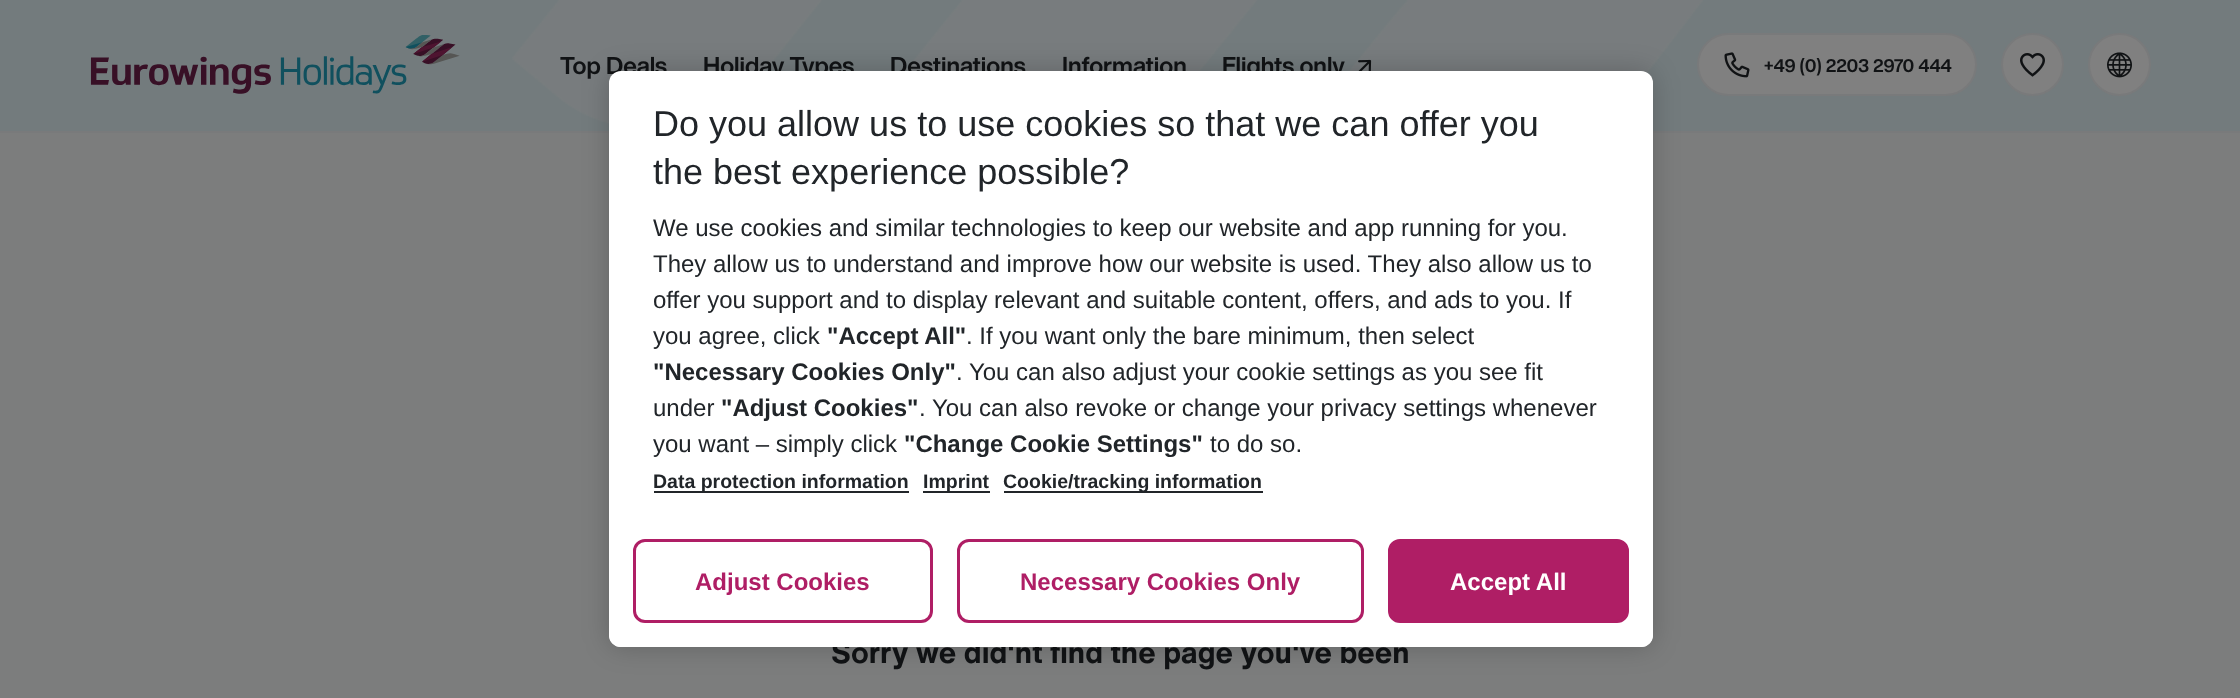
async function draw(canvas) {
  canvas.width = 2240
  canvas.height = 698
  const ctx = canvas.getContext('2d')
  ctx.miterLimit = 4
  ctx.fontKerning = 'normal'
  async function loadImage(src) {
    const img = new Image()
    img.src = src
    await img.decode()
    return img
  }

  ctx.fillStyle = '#7c7d7d'
  ctx.fillRect(0, 0, 2240, 698)
  ctx.fillStyle = '#737b7d'
  ctx.fillRect(0, 0, 2240, 131)
  ctx.drawImage(await loadImage('image0.png'), 512, 0, 1191, 124)
  ctx.fillStyle = '#797a7b'
  ctx.fillRect(0, 131, 2240, 2)
  ctx.drawImage(await loadImage('image1.png'), 90, 35, 370, 59)
  ctx.font = 'bold 24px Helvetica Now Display'
  ctx.fillStyle = '#111315'
  ctx.fillText('Top Deals', 560, 74)
  ctx.fillText('Holiday Types', 703, 74)
  ctx.fillText('Destinations', 890, 74)
  ctx.fillText('Information', 1062, 74)
  ctx.fillText('Flights only', 1222, 74)
  ctx.drawImage(await loadImage('image2.png'), 1358, 59, 14, 12)
  ctx.fillStyle = '#808080'
  ctx.beginPath()
  ctx.roundRect(1698, 34, 278, 61, 30.5)
  ctx.fill()
  ctx.strokeStyle = '#797a7b'
  ctx.lineWidth = 2
  ctx.stroke()
  ctx.drawImage(await loadImage('image3.png'), 1724, 52, 26, 26)
  ctx.font = 'bold 18px Helvetica Now Display'
  ctx.fillStyle = '#111315'
  ctx.fillText('+49 (0) 2203 2970 444', 1764, 72)
  ctx.fillStyle = '#808080'
  ctx.beginPath()
  ctx.arc(2032.5, 64.5, 30.5, 0, 2 * Math.PI)
  ctx.fill()
  ctx.stroke()
  ctx.drawImage(await loadImage('image4.png'), 2020, 53, 25, 24)
  ctx.beginPath()
  ctx.arc(2119.5, 64.5, 30.5, 0, 2 * Math.PI)
  ctx.fill()
  ctx.stroke()
  ctx.drawImage(await loadImage('image5.png'), 2107, 52, 25, 26)
  ctx.font = 'bold 30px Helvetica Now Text'
  ctx.fillStyle = '#111315'
  ctx.fillText('Sorry we did\'nt find the page you\'ve been', 831, 663)
  ctx.fillStyle = '#00000033'
  ctx.filter = 'blur(13.5px)'
  ctx.beginPath()
  ctx.roundRect(609, 71, 1044, 576, 12)
  ctx.fill()
  ctx.filter = 'none'
  ctx.fillStyle = '#fff'
  ctx.beginPath()
  ctx.roundRect(609, 71, 1044, 576, 12)
  ctx.fill()
  ctx.font = '36px Liberation Sans'
  ctx.fillStyle = '#212529'
  ctx.fillText('Do you allow us to use cookies so that we can offer you', 653, 136)
  ctx.fillText('the best experience possible?', 653, 184)
  ctx.font = '24px Liberation Sans'
  ctx.fillText('We use cookies and similar technologies to keep our website and app running for you.', 653, 236)
  ctx.fillText('They allow us to understand and improve how our website is used. They also allow us to', 653, 272)
  ctx.fillText('offer you support and to display relevant and suitable content, offers, and ads to you. If', 653, 308)
  ctx.fillText('you agree, click', 653, 344)
  ctx.font = 'bold 24px Liberation Sans'
  ctx.fillText('"Accept All"', 827, 344)
  ctx.font = '24px Liberation Sans'
  ctx.fillText('. If you want only the bare minimum, then select', 966, 344)
  ctx.font = 'bold 24px Liberation Sans'
  ctx.fillText('"Necessary Cookies Only"', 653, 380)
  ctx.font = '24px Liberation Sans'
  ctx.fillText('. You can also adjust your cookie settings as you see fit', 956, 380)
  ctx.fillText('under', 653, 416)
  ctx.font = 'bold 24px Liberation Sans'
  ctx.fillText('"Adjust Cookies"', 721, 416)
  ctx.font = '24px Liberation Sans'
  ctx.fillText('. You can also revoke or change your privacy settings whenever', 919, 416)
  ctx.fillText('you want – simply click', 653, 452)
  ctx.font = 'bold 24px Liberation Sans'
  ctx.fillText('"Change Cookie Settings"', 904, 452)
  ctx.font = '24px Liberation Sans'
  ctx.fillText('to do so.', 1210, 452)
  ctx.fillRect(654, 491, 255, 2)
  ctx.font = 'bold 19.5px Liberation Sans'
  ctx.fillText('Data protection information', 653, 488)
  ctx.fillRect(923, 491, 67, 2)
  ctx.fillText('Imprint', 923, 488)
  ctx.fillRect(1004, 491, 259, 2)
  ctx.fillText('Cookie/tracking information', 1003, 488)
  ctx.fillStyle = '#fff'
  ctx.beginPath()
  ctx.roundRect(609, 515, 1044, 132, 12)
  ctx.fill()
  ctx.beginPath()
  ctx.roundRect(634.5, 540.5, 297, 81, 10.5)
  ctx.strokeStyle = '#af1e65'
  ctx.lineWidth = 3
  ctx.stroke()
  ctx.font = 'bold 24px Liberation Sans'
  ctx.fillStyle = '#af1e65'
  ctx.fillText('Adjust Cookies', 695, 590)
  ctx.beginPath()
  ctx.roundRect(958.5, 540.5, 404, 81, 10.5)
  ctx.stroke()
  ctx.fillText('Necessary Cookies Only', 1020, 590)
  ctx.beginPath()
  ctx.roundRect(1389.5, 540.5, 238, 81, 10.5)
  ctx.fill()
  ctx.stroke()
  ctx.fillStyle = '#fff'
  ctx.fillText('Accept All', 1450, 590)
}

draw(document.querySelector('canvas'))
